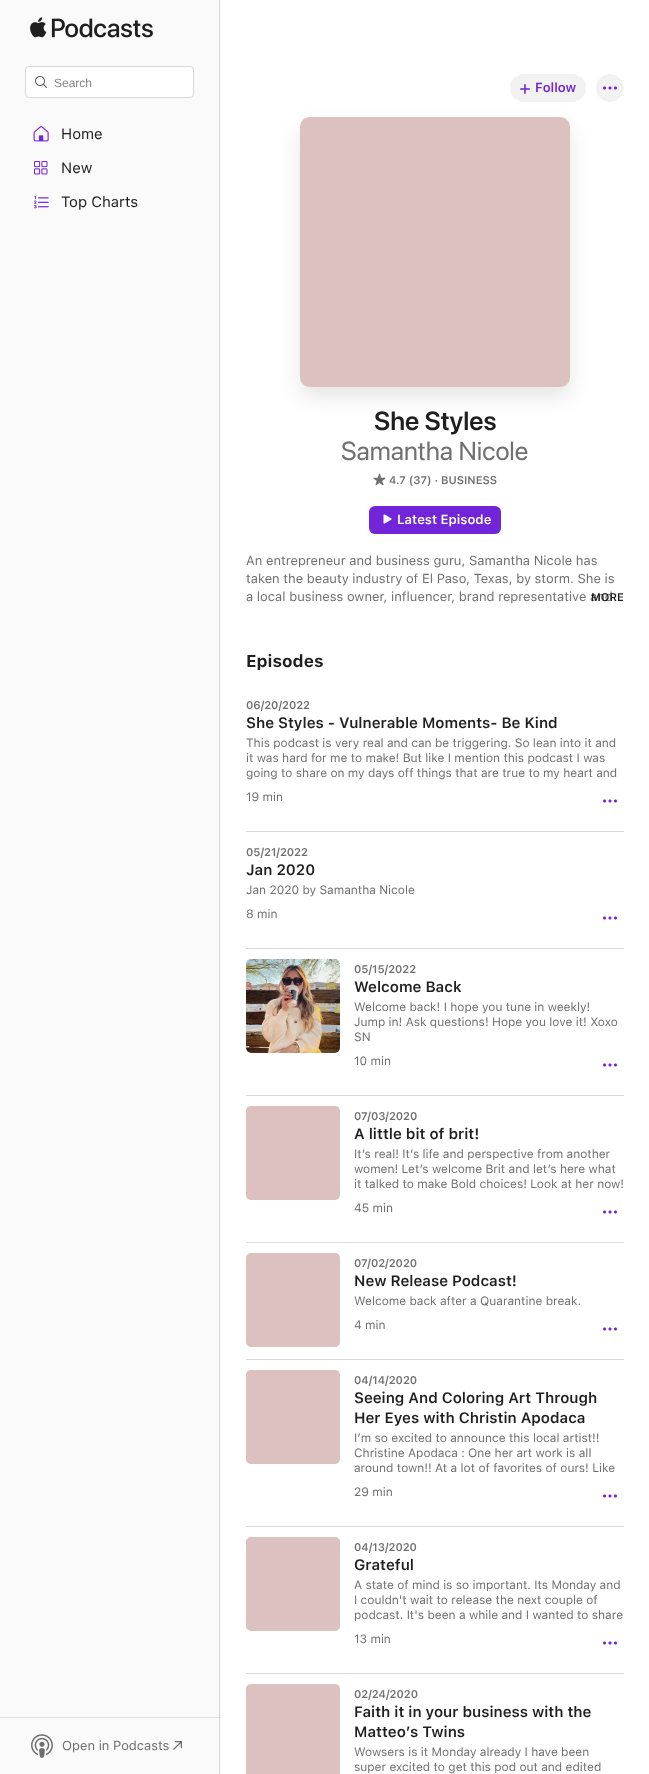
async function draw(canvas) {
  canvas.width = 649
  canvas.height = 1774
  const ctx = canvas.getContext('2d')
  ctx.miterLimit = 4
  ctx.fontKerning = 'normal'
  async function loadImage(src) {
    const img = new Image()
    img.src = src
    await img.decode()
    return img
  }

  ctx.fillStyle = '#fff'
  ctx.fillRect(0, 0, 649, 1774)
  ctx.fillStyle = '#fafafa'
  ctx.fillRect(0, 0, 219, 1774)
  ctx.fillStyle = '#e1e1e1'
  ctx.fillRect(0, 1717, 220, 1)
  ctx.fillStyle = '#d5d5d5'
  ctx.fillRect(219, 0, 1, 1774)
  ctx.fillStyle = '#c0c0c0'
  ctx.fillRect(219, 1717, 1, 1)
  ctx.drawImage(await loadImage('image0.png'), 30, 17, 123, 21)
  ctx.fillStyle = '#fff'
  ctx.beginPath()
  ctx.roundRect(25.5, 66.5, 168, 31, 3.5)
  ctx.fill()
  ctx.strokeStyle = '#d9d9d9'
  ctx.stroke()
  ctx.drawImage(await loadImage('image1.png'), 35, 76, 12, 12)
  ctx.font = '12px Liberation Sans'
  ctx.fillStyle = '#858585'
  ctx.fillText('Search', 54, 87)
  ctx.drawImage(await loadImage('image2.png'), 33, 126, 16, 16)
  ctx.font = '15px "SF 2"'
  ctx.fillStyle = '#1f1f1f'
  ctx.fillText('Home', 61, 139)
  ctx.drawImage(await loadImage('image3.png'), 34, 161, 14, 14)
  ctx.fillText('New', 61, 173)
  ctx.drawImage(await loadImage('image4.png'), 34, 196, 15, 13)
  ctx.fillText('Top Charts', 61, 207)
  ctx.drawImage(await loadImage('image5.png'), 31, 1734, 22, 24)
  ctx.font = '13px "SF 2"'
  ctx.fillStyle = '#707070'
  ctx.fillText('Open in Podcasts', 62, 1750)
  ctx.drawImage(await loadImage('image6.png'), 173, 1741, 9, 9)
  ctx.fillStyle = '#f2f2f2'
  ctx.beginPath()
  ctx.roundRect(510, 74, 76, 28, 14)
  ctx.fill()
  ctx.drawImage(await loadImage('image7.png'), 520, 84, 10, 10)
  ctx.font = '600 13px SF'
  ctx.fillStyle = '#7224d8'
  ctx.fillText('Follow', 535, 92)
  ctx.drawImage(await loadImage('image8.png'), 596, 74, 28, 28)
  ctx.fillStyle = '#0000001a'
  ctx.filter = 'blur(10px)'
  ctx.beginPath()
  ctx.roundRect(300, 127, 270, 270, 10)
  ctx.fill()
  ctx.filter = 'none'
  ctx.fillStyle = '#e7c9c7'
  ctx.beginPath()
  ctx.roundRect(300, 117, 270, 270, 10)
  ctx.fill()
  ctx.fillStyle = '#8080801a'
  ctx.beginPath()
  ctx.moveTo(310, 117)
  ctx.lineTo(560, 117)
  ctx.bezierCurveTo(566, 117, 570, 121, 570, 127)
  ctx.lineTo(570, 377)
  ctx.bezierCurveTo(570, 383, 566, 387, 560, 387)
  ctx.lineTo(310, 387)
  ctx.bezierCurveTo(304, 387, 300, 383, 300, 377)
  ctx.lineTo(300, 127)
  ctx.bezierCurveTo(300, 121, 304, 117, 310, 117)
  ctx.closePath()
  ctx.fill()
  ctx.font = '600 26px "SF 2"'
  ctx.fillStyle = '#1f1f1f'
  ctx.fillText('She Styles', 374, 430)
  ctx.font = '26px SF'
  ctx.fillStyle = '#707070'
  ctx.fillText('Samantha Nicole', 341, 460)
  ctx.drawImage(await loadImage('image9.png'), 373, 473, 13, 13)
  ctx.font = '600 11px SF'
  ctx.fillText('4.7 (37) · BUSINESS', 389, 484)
  ctx.fillStyle = '#7224d8'
  ctx.beginPath()
  ctx.roundRect(369, 506, 132, 28, 6)
  ctx.fill()
  ctx.drawImage(await loadImage('image10.png'), 383, 514, 9, 10)
  ctx.font = '600 13px SF'
  ctx.fillStyle = '#fff'
  ctx.fillText('Latest Episode', 397, 524)
  ctx.font = '13px "SF 2"'
  ctx.fillStyle = '#707070'
  ctx.fillText('An entrepreneur and business guru, Samantha Nicole has', 246, 565)
  ctx.fillText('taken the beauty industry of El Paso, Texas, by storm. She is', 246, 583)
  ctx.fillText('a local business owner, influencer, brand representative and', 246, 601)
  ctx.font = '600 11px SF'
  ctx.fillStyle = '#1f1f1f'
  ctx.fillText('MORE', 591, 601)
  ctx.font = 'bold 17px SF'
  ctx.fillText('Episodes', 246, 667)
  ctx.fillStyle = '#d9d9d9'
  ctx.fillRect(246, 831, 378, 1)
  ctx.font = '600 11px SF'
  ctx.fillStyle = '#707070'
  ctx.fillText('06/20/2022', 246, 709)
  ctx.font = '600 15px SF'
  ctx.fillStyle = '#1f1f1f'
  ctx.fillText('She Styles - Vulnerable Moments- Be Kind', 246, 728)
  ctx.font = '12px "SF 2"'
  ctx.fillStyle = '#707070'
  ctx.fillText('This podcast is very real and can be triggering. So lean into it and', 246, 747)
  ctx.fillText('it was hard for me to make! But like I mention this podcast I was', 246, 762)
  ctx.fillText('going to share on my days off things that are true to my heart and', 246, 777)
  ctx.fillText('19 min', 246, 801)
  ctx.drawImage(await loadImage('image11.png'), 603, 799, 14, 4)
  ctx.fillStyle = '#d9d9d9'
  ctx.fillRect(246, 948, 378, 1)
  ctx.font = '600 11px SF'
  ctx.fillStyle = '#707070'
  ctx.fillText('05/21/2022', 246, 856)
  ctx.font = '600 15px SF'
  ctx.fillStyle = '#1f1f1f'
  ctx.fillText('Jan 2020', 246, 875)
  ctx.font = '12px "SF 2"'
  ctx.fillStyle = '#707070'
  ctx.fillText('Jan 2020 by Samantha Nicole', 246, 894)
  ctx.fillText('8 min', 246, 918)
  ctx.drawImage(await loadImage('image11.png'), 603, 916, 14, 4)
  ctx.fillStyle = '#d9d9d9'
  ctx.fillRect(246, 1095, 378, 1)
  ctx.fillStyle = '#f2ddb6'
  ctx.beginPath()
  ctx.roundRect(246, 959, 94, 94, 5)
  ctx.fill()
  ctx.drawImage(await loadImage('image12.png'), 246, 959, 94, 94)
  ctx.fillStyle = '#8080801a'
  ctx.beginPath()
  ctx.moveTo(251, 959)
  ctx.lineTo(335, 959)
  ctx.bezierCurveTo(338, 959, 340, 961, 340, 964)
  ctx.lineTo(340, 1048)
  ctx.bezierCurveTo(340, 1051, 338, 1053, 335, 1053)
  ctx.lineTo(251, 1053)
  ctx.bezierCurveTo(248, 1053, 246, 1051, 246, 1048)
  ctx.lineTo(246, 964)
  ctx.bezierCurveTo(246, 961, 248, 959, 251, 959)
  ctx.closePath()
  ctx.fill()
  ctx.font = '600 11px SF'
  ctx.fillStyle = '#707070'
  ctx.fillText('05/15/2022', 354, 973)
  ctx.font = '600 15px SF'
  ctx.fillStyle = '#1f1f1f'
  ctx.fillText('Welcome Back', 354, 992)
  ctx.font = '12px "SF 2"'
  ctx.fillStyle = '#707070'
  ctx.fillText('Welcome back! I hope you tune in weekly!', 354, 1011)
  ctx.fillText('Jump in! Ask questions! Hope you love it! Xoxo', 354, 1026)
  ctx.fillText('SN', 354, 1041)
  ctx.fillText('10 min', 354, 1065)
  ctx.drawImage(await loadImage('image11.png'), 603, 1063, 14, 4)
  ctx.fillStyle = '#d9d9d9'
  ctx.fillRect(246, 1242, 378, 1)
  ctx.fillStyle = '#e7c9c7'
  ctx.beginPath()
  ctx.roundRect(246, 1106, 94, 94, 5)
  ctx.fill()
  ctx.fillStyle = '#8080801a'
  ctx.beginPath()
  ctx.moveTo(251, 1106)
  ctx.lineTo(335, 1106)
  ctx.bezierCurveTo(338, 1106, 340, 1108, 340, 1111)
  ctx.lineTo(340, 1195)
  ctx.bezierCurveTo(340, 1198, 338, 1200, 335, 1200)
  ctx.lineTo(251, 1200)
  ctx.bezierCurveTo(248, 1200, 246, 1198, 246, 1195)
  ctx.lineTo(246, 1111)
  ctx.bezierCurveTo(246, 1108, 248, 1106, 251, 1106)
  ctx.closePath()
  ctx.fill()
  ctx.font = '600 11px SF'
  ctx.fillStyle = '#707070'
  ctx.fillText('07/03/2020', 354, 1120)
  ctx.font = '600 15px SF'
  ctx.fillStyle = '#1f1f1f'
  ctx.fillText('A little bit of brit!', 354, 1139)
  ctx.font = '12px "SF 2"'
  ctx.fillStyle = '#707070'
  ctx.fillText('It’s real! It’s life and perspective from another', 354, 1158)
  ctx.fillText('women! Let’s welcome Brit and let’s here what', 354, 1173)
  ctx.fillText('it talked to make Bold choices! Look at her now!', 354, 1188)
  ctx.fillText('45 min', 354, 1212)
  ctx.drawImage(await loadImage('image11.png'), 603, 1210, 14, 4)
  ctx.fillStyle = '#d9d9d9'
  ctx.fillRect(246, 1359, 378, 1)
  ctx.fillStyle = '#e7c9c7'
  ctx.beginPath()
  ctx.roundRect(246, 1253, 94, 94, 5)
  ctx.fill()
  ctx.fillStyle = '#8080801a'
  ctx.beginPath()
  ctx.moveTo(251, 1253)
  ctx.lineTo(335, 1253)
  ctx.bezierCurveTo(338, 1253, 340, 1255, 340, 1258)
  ctx.lineTo(340, 1342)
  ctx.bezierCurveTo(340, 1345, 338, 1347, 335, 1347)
  ctx.lineTo(251, 1347)
  ctx.bezierCurveTo(248, 1347, 246, 1345, 246, 1342)
  ctx.lineTo(246, 1258)
  ctx.bezierCurveTo(246, 1255, 248, 1253, 251, 1253)
  ctx.closePath()
  ctx.fill()
  ctx.font = '600 11px SF'
  ctx.fillStyle = '#707070'
  ctx.fillText('07/02/2020', 354, 1267)
  ctx.font = '600 15px SF'
  ctx.fillStyle = '#1f1f1f'
  ctx.fillText('New Release Podcast!', 354, 1286)
  ctx.font = '12px "SF 2"'
  ctx.fillStyle = '#707070'
  ctx.fillText('Welcome back after a Quarantine break.', 354, 1305)
  ctx.fillText('4 min', 354, 1329)
  ctx.drawImage(await loadImage('image11.png'), 603, 1327, 14, 4)
  ctx.fillStyle = '#d9d9d9'
  ctx.fillRect(246, 1526, 378, 1)
  ctx.fillStyle = '#e7c9c7'
  ctx.beginPath()
  ctx.roundRect(246, 1370, 94, 94, 5)
  ctx.fill()
  ctx.fillStyle = '#8080801a'
  ctx.beginPath()
  ctx.moveTo(251, 1370)
  ctx.lineTo(335, 1370)
  ctx.bezierCurveTo(338, 1370, 340, 1372, 340, 1375)
  ctx.lineTo(340, 1459)
  ctx.bezierCurveTo(340, 1462, 338, 1464, 335, 1464)
  ctx.lineTo(251, 1464)
  ctx.bezierCurveTo(248, 1464, 246, 1462, 246, 1459)
  ctx.lineTo(246, 1375)
  ctx.bezierCurveTo(246, 1372, 248, 1370, 251, 1370)
  ctx.closePath()
  ctx.fill()
  ctx.font = '600 11px SF'
  ctx.fillStyle = '#707070'
  ctx.fillText('04/14/2020', 354, 1384)
  ctx.font = '600 15px SF'
  ctx.fillStyle = '#1f1f1f'
  ctx.fillText('Seeing And Coloring Art Through', 354, 1403)
  ctx.fillText('Her Eyes with Christin Apodaca', 354, 1423)
  ctx.font = '12px "SF 2"'
  ctx.fillStyle = '#707070'
  ctx.fillText('I’m so excited to announce this local artist!!', 354, 1442)
  ctx.fillText('Christine Apodaca : One her art work is all', 354, 1457)
  ctx.fillText('around town!! At a lot of favorites of ours! Like', 354, 1472)
  ctx.fillText('29 min', 354, 1496)
  ctx.drawImage(await loadImage('image11.png'), 603, 1494, 14, 4)
  ctx.fillStyle = '#d9d9d9'
  ctx.fillRect(246, 1673, 378, 1)
  ctx.fillStyle = '#e7c9c7'
  ctx.beginPath()
  ctx.roundRect(246, 1537, 94, 94, 5)
  ctx.fill()
  ctx.fillStyle = '#8080801a'
  ctx.beginPath()
  ctx.moveTo(251, 1537)
  ctx.lineTo(335, 1537)
  ctx.bezierCurveTo(338, 1537, 340, 1539, 340, 1542)
  ctx.lineTo(340, 1626)
  ctx.bezierCurveTo(340, 1629, 338, 1631, 335, 1631)
  ctx.lineTo(251, 1631)
  ctx.bezierCurveTo(248, 1631, 246, 1629, 246, 1626)
  ctx.lineTo(246, 1542)
  ctx.bezierCurveTo(246, 1539, 248, 1537, 251, 1537)
  ctx.closePath()
  ctx.fill()
  ctx.font = '600 11px SF'
  ctx.fillStyle = '#707070'
  ctx.fillText('04/13/2020', 354, 1551)
  ctx.font = '600 15px SF'
  ctx.fillStyle = '#1f1f1f'
  ctx.fillText('Grateful', 354, 1570)
  ctx.font = '12px "SF 2"'
  ctx.fillStyle = '#707070'
  ctx.fillText('A state of mind is so important. Its Monday and', 354, 1589)
  ctx.fillText('I couldn\'t wait to release the next couple of', 354, 1604)
  ctx.fillText('podcast. It\'s been a while and I wanted to share', 354, 1619)
  ctx.fillText('13 min', 354, 1643)
  ctx.drawImage(await loadImage('image11.png'), 603, 1641, 14, 4)
  ctx.fillStyle = '#e7c9c7'
  ctx.beginPath()
  ctx.roundRect(246, 1684, 94, 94, 5)
  ctx.fill()
  ctx.fillStyle = '#8080801a'
  ctx.beginPath()
  ctx.moveTo(251, 1684)
  ctx.lineTo(335, 1684)
  ctx.bezierCurveTo(338, 1684, 340, 1686, 340, 1689)
  ctx.lineTo(340, 1773)
  ctx.bezierCurveTo(340, 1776, 338, 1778, 335, 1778)
  ctx.lineTo(251, 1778)
  ctx.bezierCurveTo(248, 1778, 246, 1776, 246, 1773)
  ctx.lineTo(246, 1689)
  ctx.bezierCurveTo(246, 1686, 248, 1684, 251, 1684)
  ctx.closePath()
  ctx.fill()
  ctx.font = '600 11px SF'
  ctx.fillStyle = '#707070'
  ctx.fillText('02/24/2020', 354, 1698)
  ctx.font = '600 15px SF'
  ctx.fillStyle = '#1f1f1f'
  ctx.fillText('Faith it in your business with the', 354, 1717)
  ctx.fillText('Matteo’s Twins', 354, 1737)
  ctx.font = '12px "SF 2"'
  ctx.fillStyle = '#707070'
  ctx.fillText('Wowsers is it Monday already I have been', 354, 1756)
  ctx.fillText('super excited to get this pod out and edited', 354, 1771)
}

draw(document.querySelector('canvas'))
